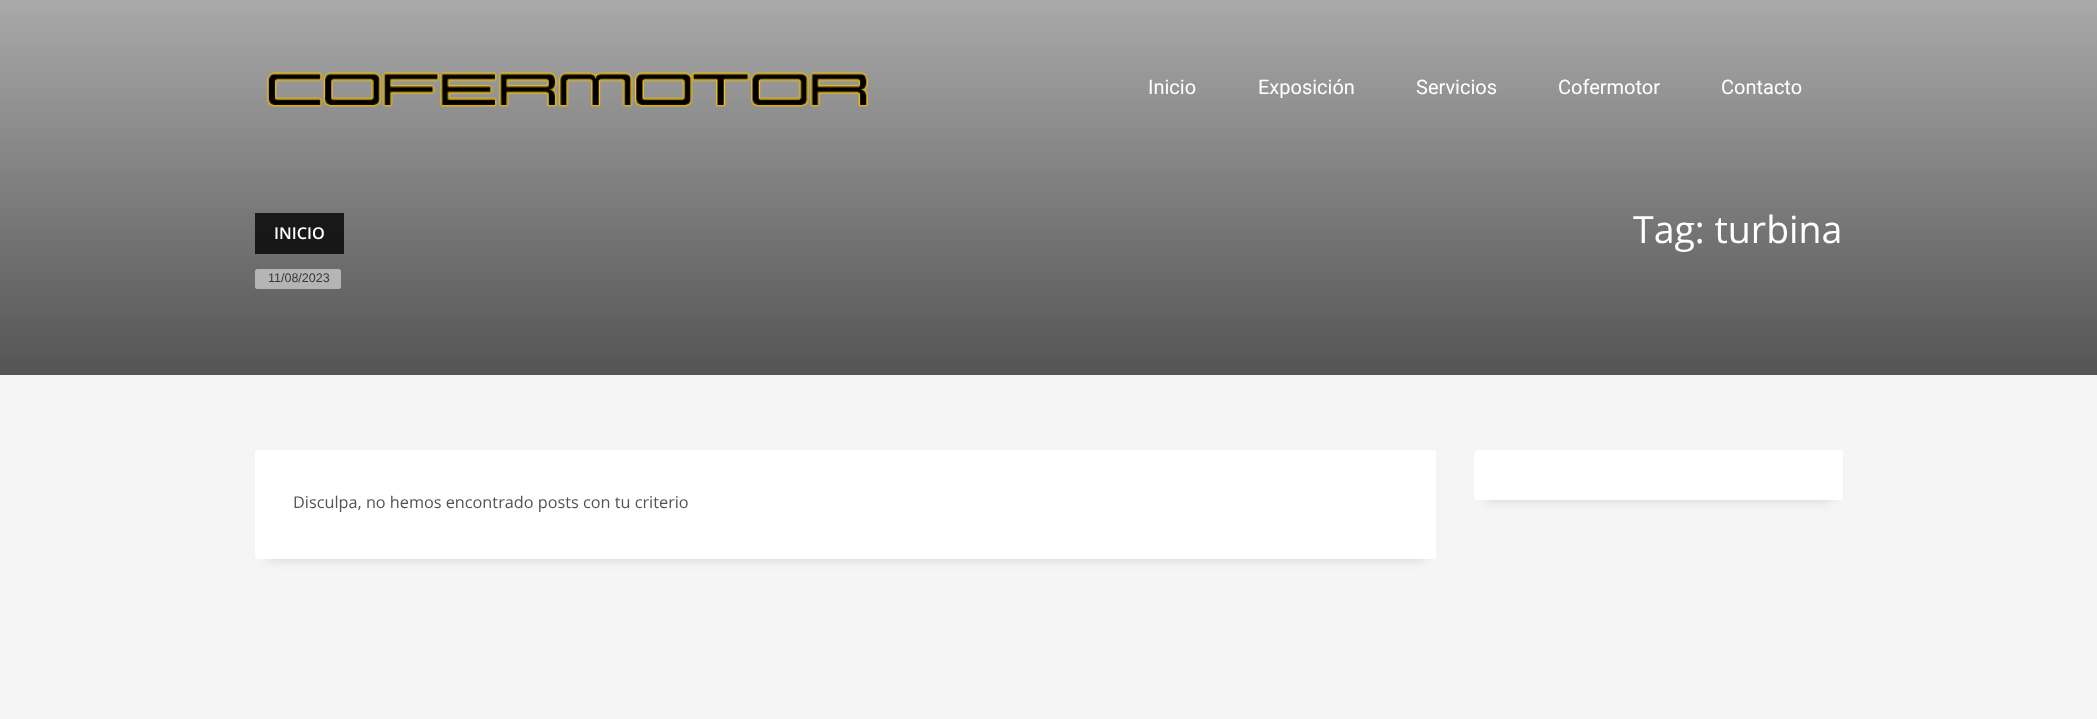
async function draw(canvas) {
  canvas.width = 2097
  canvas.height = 719
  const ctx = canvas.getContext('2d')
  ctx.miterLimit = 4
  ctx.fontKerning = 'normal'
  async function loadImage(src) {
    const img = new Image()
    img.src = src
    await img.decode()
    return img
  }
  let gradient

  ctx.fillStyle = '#f5f5f5'
  ctx.fillRect(0, 0, 2097, 719)
  gradient = ctx.createLinearGradient(1049, 0, 1049, 375)
  gradient.addColorStop(0, '#a9a9a9')
  gradient.addColorStop(1, '#545454')
  ctx.fillStyle = gradient
  ctx.fillRect(0, 0, 2097, 375)
  ctx.drawImage(await loadImage('image0.png'), 267, 72, 601, 35)
  ctx.font = '20px Roboto'
  ctx.fillStyle = '#fff'
  ctx.fillText('Inicio', 1148, 94)
  ctx.fillText('Exposición', 1258, 94)
  ctx.fillText('Servicios', 1416, 94)
  ctx.fillText('Cofermotor', 1558, 94)
  ctx.fillText('Contacto', 1721, 94)
  gradient = ctx.createLinearGradient(1049, 0, 1049, 375)
  gradient.addColorStop(0, '#222')
  gradient.addColorStop(1, '#111')
  ctx.fillStyle = gradient
  ctx.fillRect(255, 213, 89, 41)
  ctx.font = '600 16.25px Open Sans'
  ctx.fillStyle = '#fff'
  ctx.fillText('INICIO', 274, 239)
  ctx.fillStyle = '#ffffff80'
  ctx.beginPath()
  ctx.roundRect(255, 269, 86, 20, 2.5)
  ctx.fill()
  ctx.font = '12.5px Liberation Sans'
  ctx.fillStyle = '#383838'
  ctx.fillText('11/08/2023', 268, 282)
  ctx.font = '37.5px Open Sans'
  ctx.fillStyle = '#fff'
  ctx.fillText('Tag: turbina', 1633, 243)
  ctx.fillStyle = '#00000026'
  ctx.filter = 'blur(6px)'
  ctx.beginPath()
  ctx.rect(268, 475, 1156, 84)
  ctx.fill()
  ctx.filter = 'none'
  ctx.fillStyle = '#fff'
  ctx.beginPath()
  ctx.roundRect(255, 450, 1181, 109, 4)
  ctx.fill()
  ctx.font = '16.25px Open Sans'
  ctx.fillStyle = '#535353'
  ctx.fillText('Disculpa, no hemos encontrado posts con tu criterio', 293, 508)
  ctx.fillStyle = '#00000026'
  ctx.filter = 'blur(6px)'
  ctx.beginPath()
  ctx.rect(1486, 475, 344, 25)
  ctx.fill()
  ctx.filter = 'none'
  ctx.fillStyle = '#fff'
  ctx.beginPath()
  ctx.roundRect(1474, 450, 369, 50, 4)
  ctx.fill()
}

draw(document.querySelector('canvas'))
